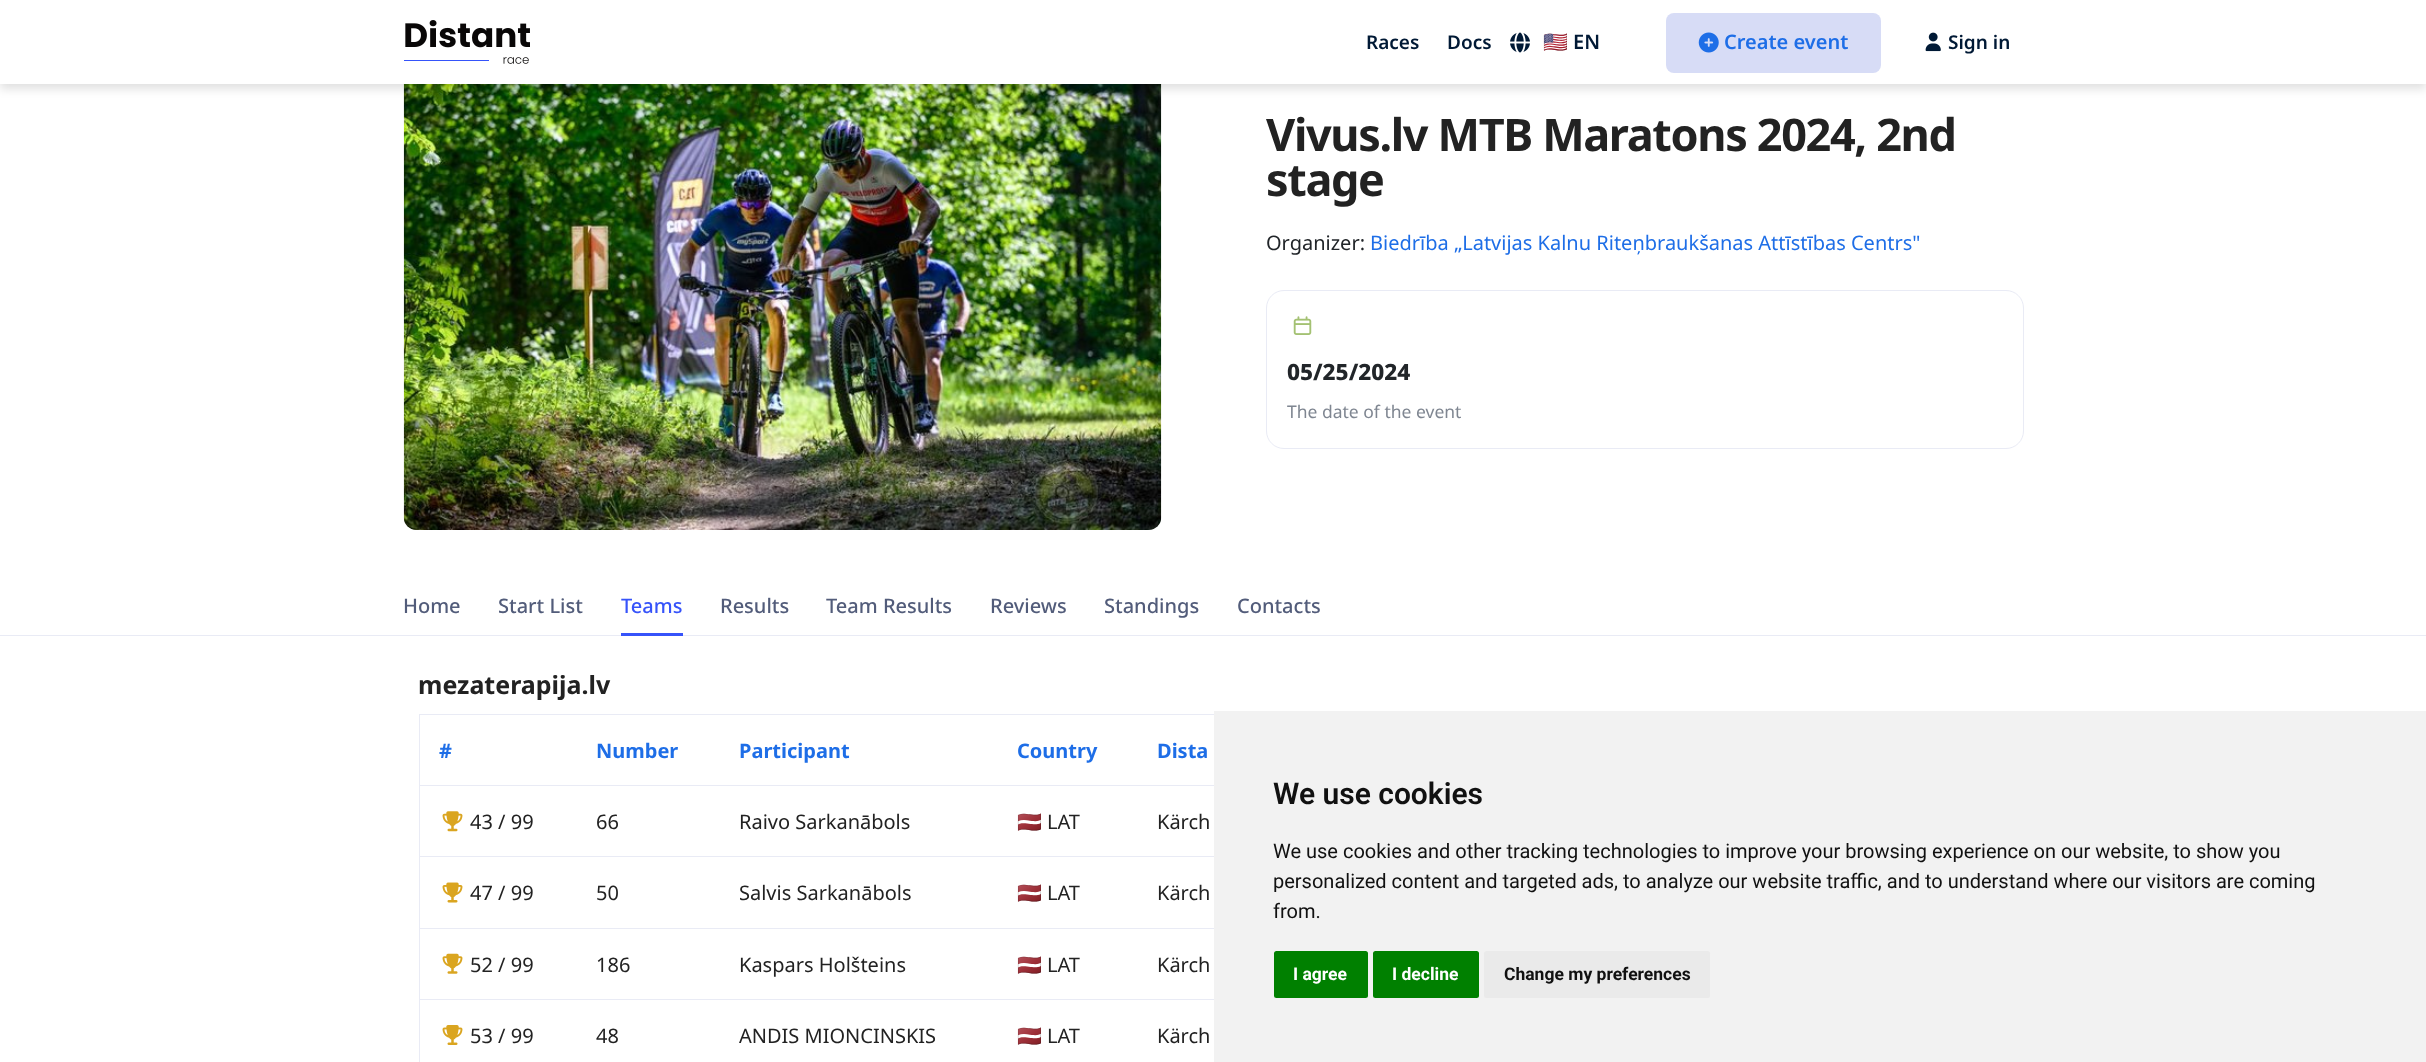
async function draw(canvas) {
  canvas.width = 2426
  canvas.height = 1062
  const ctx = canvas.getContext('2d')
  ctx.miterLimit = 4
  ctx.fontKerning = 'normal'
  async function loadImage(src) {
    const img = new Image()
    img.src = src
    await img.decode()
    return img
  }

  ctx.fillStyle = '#fff'
  ctx.fillRect(0, 0, 2426, 1062)
  ctx.drawImage(await loadImage('image4.png'), 403, 84, 759, 446)
  ctx.fillStyle = '#0000001f'
  ctx.filter = 'blur(5px)'
  ctx.beginPath()
  ctx.rect(0, 5, 2426, 84)
  ctx.fill()
  ctx.filter = 'none'
  ctx.fillStyle = '#fff'
  ctx.fillRect(0, 0, 2426, 84)
  ctx.drawImage(await loadImage('image0.png'), 404, 20, 126, 44)
  ctx.font = '600 19px Noto Sans'
  ctx.fillStyle = '#001935'
  ctx.fillText('Races', 1366, 49)
  ctx.fillText('Docs', 1447, 49)
  ctx.drawImage(await loadImage('image1.png'), 1510, 32, 20, 21)
  ctx.font = '20px Noto Color Emoji'
  ctx.fillText('🇺🇸', 1543, 49)
  ctx.font = '600 20px Noto Sans'
  ctx.fillText('EN', 1573, 49)
  ctx.fillStyle = '#d7dcf6'
  ctx.beginPath()
  ctx.roundRect(1666, 13, 215, 60, 8)
  ctx.fill()
  ctx.drawImage(await loadImage('image2.png'), 1698, 32, 21, 21)
  ctx.fillStyle = '#1e6ee7'
  ctx.fillText('Create event', 1724, 49)
  ctx.drawImage(await loadImage('image3.png'), 1925, 32, 16, 20)
  ctx.font = '600 19px Noto Sans'
  ctx.fillStyle = '#001935'
  ctx.fillText('Sign in', 1948, 49)
  ctx.letterSpacing = '-1.35px'
  ctx.font = 'bold 45px Noto Sans'
  ctx.fillStyle = '#222'
  ctx.fillText('Vivus.lv MTB Maratons 2024, 2nd', 1266, 151)
  ctx.fillText('stage', 1266, 196)
  ctx.letterSpacing = '0px'
  ctx.font = '20px Noto Sans'
  ctx.fillStyle = '#212529'
  ctx.fillText('Organizer:', 1266, 250)
  ctx.fillStyle = '#1e6ee7'
  ctx.fillText('Biedrība „Latvijas Kalnu Riteņbraukšanas Attīstības Centrs"', 1370, 250)
  ctx.beginPath()
  ctx.roundRect(1266.5, 290.5, 757, 158, 17.5)
  ctx.strokeStyle = '#e9ebf5'
  ctx.stroke()
  ctx.drawImage(await loadImage('image5.png'), 1293, 316, 19, 19)
  ctx.font = '800 22.5px Noto Sans'
  ctx.fillStyle = '#212529'
  ctx.fillText('05/25/2024', 1287, 380)
  ctx.font = '17.5px Noto Sans'
  ctx.fillStyle = '#7f8691'
  ctx.fillText('The date of the event', 1287, 418)
  ctx.fillStyle = '#e9ebf5'
  ctx.fillRect(0, 635, 2426, 1)
  ctx.font = '500 20px Noto Sans'
  ctx.fillStyle = '#525c7a'
  ctx.fillText('Home', 403, 613)
  ctx.fillText('Start List', 498, 613)
  ctx.fillStyle = '#3653fa'
  ctx.fillRect(621, 633, 62, 3)
  ctx.fillText('Teams', 621, 613)
  ctx.fillStyle = '#525c7a'
  ctx.fillText('Results', 720, 613)
  ctx.fillText('Team Results', 826, 613)
  ctx.fillText('Reviews', 990, 613)
  ctx.fillText('Standings', 1104, 613)
  ctx.fillText('Contacts', 1237, 613)
  ctx.font = 'bold 25px Noto Sans'
  ctx.fillStyle = '#222'
  ctx.fillText('mezaterapija.lv', 418, 694)
  ctx.fillStyle = '#e9ebf5'
  ctx.fillRect(419, 714, 795, 1)
  ctx.fillRect(419, 714, 1, 348)
  ctx.font = 'bold 20px Noto Sans'
  ctx.fillStyle = '#1e6ee7'
  ctx.fillText('#', 439, 758)
  ctx.fillText('Number', 596, 758)
  ctx.fillText('Participant', 739, 758)
  ctx.fillText('Country', 1017, 758)
  ctx.fillStyle = '#e9ebf5'
  ctx.fillRect(419, 785, 795, 1)
  ctx.fillStyle = '#1e6ee7'
  ctx.fillText('Dista', 1157, 758)
  ctx.drawImage(await loadImage('image6.png'), 442, 811, 21, 21)
  ctx.font = '20px Noto Sans'
  ctx.fillStyle = '#222'
  ctx.fillText('43 / 99', 470, 829)
  ctx.fillText('66', 596, 829)
  ctx.fillText('Raivo Sarkanābols', 739, 829)
  ctx.font = '20px Noto Color Emoji'
  ctx.fillText('🇱🇻', 1017, 829)
  ctx.font = '20px Noto Sans'
  ctx.fillText('LAT', 1047, 829)
  ctx.fillStyle = '#e9ebf5'
  ctx.fillRect(419, 856, 795, 1)
  ctx.fillStyle = '#222'
  ctx.fillText('Kärch', 1157, 829)
  ctx.drawImage(await loadImage('image7.png'), 442, 882, 21, 21)
  ctx.fillText('47 / 99', 470, 900)
  ctx.fillText('50', 596, 900)
  ctx.fillText('Salvis Sarkanābols', 739, 900)
  ctx.font = '20px Noto Color Emoji'
  ctx.fillText('🇱🇻', 1017, 900)
  ctx.font = '20px Noto Sans'
  ctx.fillText('LAT', 1047, 900)
  ctx.fillStyle = '#e9ebf5'
  ctx.fillRect(419, 928, 795, 1)
  ctx.fillStyle = '#222'
  ctx.fillText('Kärch', 1157, 900)
  ctx.drawImage(await loadImage('image8.png'), 442, 953, 21, 21)
  ctx.fillText('52 / 99', 470, 972)
  ctx.fillText('186', 596, 972)
  ctx.fillText('Kaspars Holšteins', 739, 972)
  ctx.font = '20px Noto Color Emoji'
  ctx.fillText('🇱🇻', 1017, 972)
  ctx.font = '20px Noto Sans'
  ctx.fillText('LAT', 1047, 972)
  ctx.fillStyle = '#e9ebf5'
  ctx.fillRect(419, 999, 795, 1)
  ctx.fillStyle = '#222'
  ctx.fillText('Kärch', 1157, 972)
  ctx.drawImage(await loadImage('image9.png'), 442, 1025, 21, 20)
  ctx.fillText('53 / 99', 470, 1043)
  ctx.fillText('48', 596, 1043)
  ctx.fillText('ANDIS MIONCINSKIS', 739, 1043)
  ctx.font = '20px Noto Color Emoji'
  ctx.fillText('🇱🇻', 1017, 1043)
  ctx.font = '20px Noto Sans'
  ctx.fillText('LAT', 1047, 1043)
  ctx.fillText('Kärch', 1157, 1043)
  ctx.fillStyle = '#f2f2f2'
  ctx.fillRect(1214, 711, 1212, 351)
  ctx.font = '600 30px Roboto'
  ctx.fillStyle = '#111'
  ctx.fillText('We use cookies', 1273, 804)
  ctx.font = '20px Roboto'
  ctx.fillText('We use cookies and other tracking technologies to improve your browsing experience on our website, to show you', 1273, 858)
  ctx.fillText('personalized content and targeted ads, to analyze our website traffic, and to understand where our visitors are coming', 1273, 888)
  ctx.fillText('from.', 1273, 918)
  ctx.fillStyle = '#008000'
  ctx.beginPath()
  ctx.roundRect(1274, 951, 94, 47, 2.5)
  ctx.fill()
  ctx.font = 'bold 17.5px Roboto'
  ctx.fillStyle = '#fff'
  ctx.fillText('I agree', 1293, 980)
  ctx.fillStyle = '#008000'
  ctx.beginPath()
  ctx.roundRect(1373, 951, 106, 47, 2.5)
  ctx.fill()
  ctx.fillStyle = '#fff'
  ctx.fillText('I decline', 1392, 980)
  ctx.fillStyle = '#eaeaea'
  ctx.beginPath()
  ctx.roundRect(1484, 951, 226, 47, 2.5)
  ctx.fill()
  ctx.fillStyle = '#111'
  ctx.fillText('Change my preferences', 1504, 980)
}

draw(document.querySelector('canvas'))
